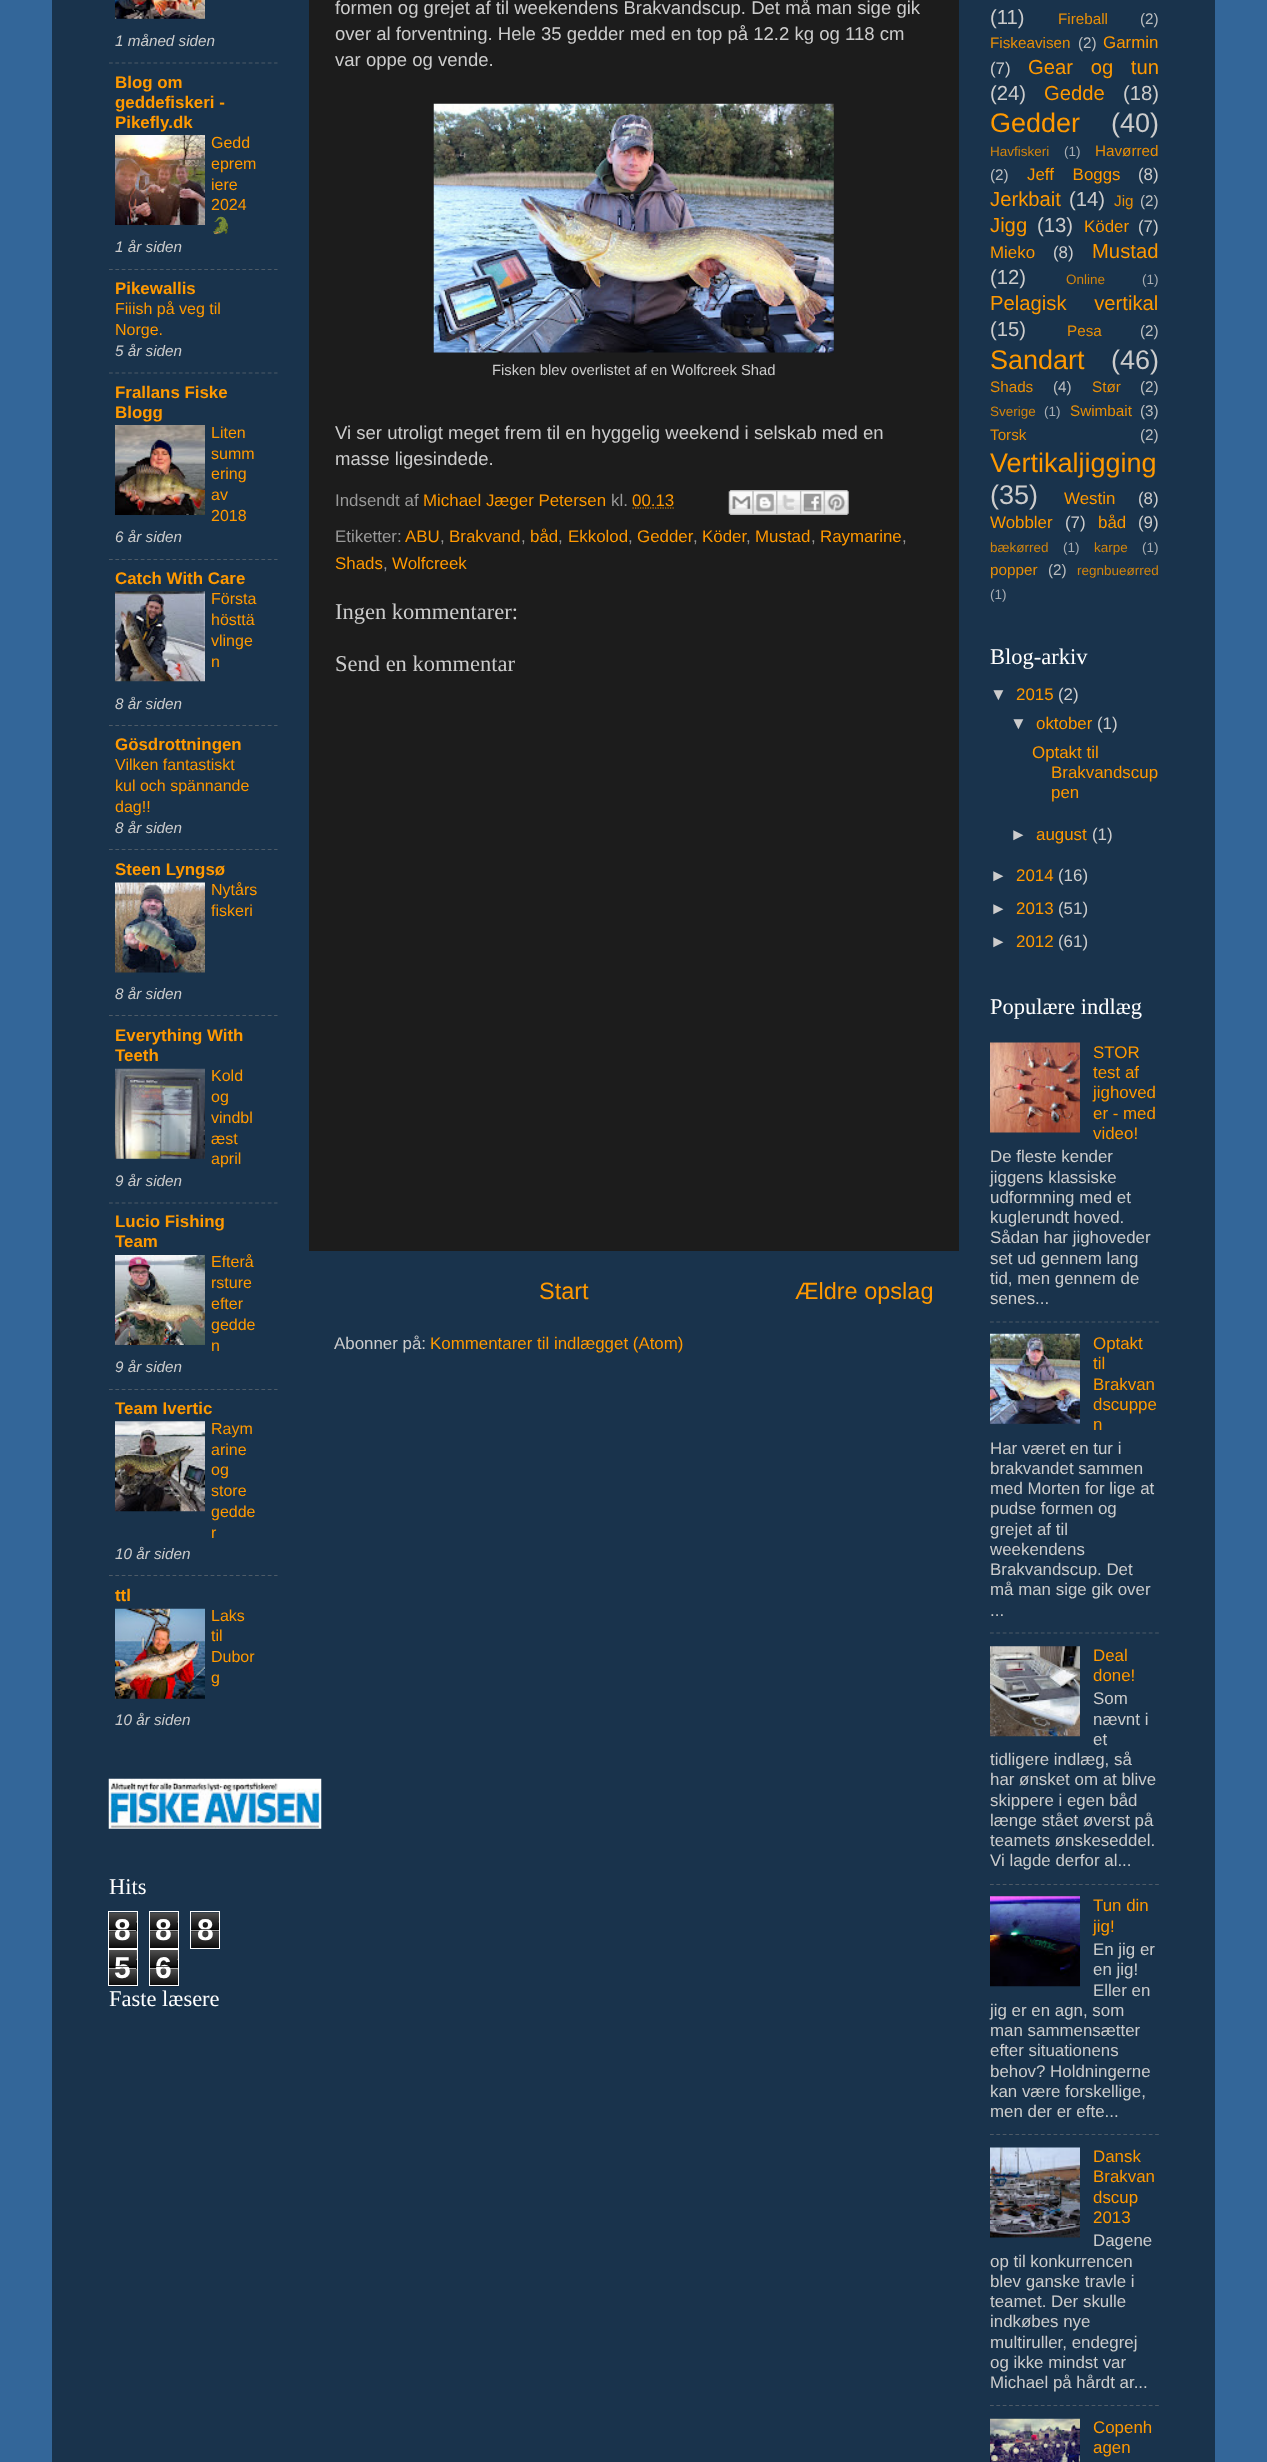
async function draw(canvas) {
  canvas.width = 1267
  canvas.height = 2462
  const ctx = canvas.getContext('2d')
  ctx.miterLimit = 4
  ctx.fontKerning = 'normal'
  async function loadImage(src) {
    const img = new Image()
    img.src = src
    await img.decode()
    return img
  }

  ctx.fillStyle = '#369'
  ctx.fillRect(0, 0, 1267, 2462)
  ctx.fillStyle = '#00000080'
  ctx.fillRect(52, 0, 1163, 2462)
  ctx.drawImage(await loadImage('image0.png'), 115, 0, 90, 19)
  ctx.font = 'italic 15.25px Liberation Sans'
  ctx.fillStyle = '#ccc'
  ctx.fillText('1 måned siden', 115, 46)
  ctx.beginPath()
  ctx.moveTo(109, 63)
  ctx.lineTo(277.5, 63)
  ctx.strokeStyle = '#4d5a66'
  ctx.lineWidth = 1.2
  ctx.setLineDash([3.75, 2.6])
  ctx.stroke()
  ctx.font = 'bold 16.9px Liberation Sans'
  ctx.fillStyle = '#f90'
  ctx.fillText('Blog om', 115, 88)
  ctx.fillText('geddefiskeri -', 115, 108)
  ctx.fillText('Pikefly.dk', 115, 128)
  ctx.drawImage(await loadImage('image1.png'), 115, 135, 90, 90)
  ctx.font = '16px Liberation Sans'
  ctx.fillText('Gedd', 211, 148)
  ctx.fillText('eprem', 211, 169)
  ctx.fillText('iere', 211, 190)
  ctx.fillText('2024', 211, 210)
  ctx.font = '16px Noto Color Emoji'
  ctx.fillText('🐊', 211, 231)
  ctx.font = 'italic 15.25px Liberation Sans'
  ctx.fillStyle = '#ccc'
  ctx.fillText('1 år siden', 115, 252)
  ctx.beginPath()
  ctx.moveTo(109, 269.5)
  ctx.lineTo(277.5, 269.5)
  ctx.stroke()
  ctx.font = 'bold 16.9px Liberation Sans'
  ctx.fillStyle = '#f90'
  ctx.fillText('Pikewallis', 115, 294)
  ctx.font = '16px Liberation Sans'
  ctx.fillText('Fiiish på veg til', 115, 314)
  ctx.fillText('Norge.', 115, 335)
  ctx.font = 'italic 15.25px Liberation Sans'
  ctx.fillStyle = '#ccc'
  ctx.fillText('5 år siden', 115, 356)
  ctx.beginPath()
  ctx.moveTo(109, 373)
  ctx.lineTo(277.5, 373)
  ctx.stroke()
  ctx.font = 'bold 16.9px Liberation Sans'
  ctx.fillStyle = '#f90'
  ctx.fillText('Frallans Fiske', 115, 398)
  ctx.fillText('Blogg', 115, 418)
  ctx.drawImage(await loadImage('image2.png'), 115, 425, 90, 90)
  ctx.font = '16px Liberation Sans'
  ctx.fillText('Liten', 211, 438)
  ctx.fillText('summ', 211, 459)
  ctx.fillText('ering', 211, 479)
  ctx.fillText('av', 211, 500)
  ctx.fillText('2018', 211, 521)
  ctx.font = 'italic 15.25px Liberation Sans'
  ctx.fillStyle = '#ccc'
  ctx.fillText('6 år siden', 115, 542)
  ctx.beginPath()
  ctx.moveTo(109, 559.5)
  ctx.lineTo(277.5, 559.5)
  ctx.stroke()
  ctx.font = 'bold 16.9px Liberation Sans'
  ctx.fillStyle = '#f90'
  ctx.fillText('Catch With Care', 115, 584)
  ctx.drawImage(await loadImage('image3.png'), 115, 591, 90, 91)
  ctx.font = '16px Liberation Sans'
  ctx.fillText('Första', 211, 604)
  ctx.fillText('hösttä', 211, 625)
  ctx.fillText('vlinge', 211, 646)
  ctx.fillText('n', 211, 667)
  ctx.font = 'italic 15.25px Liberation Sans'
  ctx.fillStyle = '#ccc'
  ctx.fillText('8 år siden', 115, 709)
  ctx.beginPath()
  ctx.moveTo(109, 725.5)
  ctx.lineTo(277.5, 725.5)
  ctx.stroke()
  ctx.font = 'bold 16.9px Liberation Sans'
  ctx.fillStyle = '#f90'
  ctx.fillText('Gösdrottningen', 115, 750)
  ctx.font = '16px Liberation Sans'
  ctx.fillText('Vilken fantastiskt', 115, 770)
  ctx.fillText('kul och spännande', 115, 791)
  ctx.fillText('dag!!', 115, 812)
  ctx.font = 'italic 15.25px Liberation Sans'
  ctx.fillStyle = '#ccc'
  ctx.fillText('8 år siden', 115, 833)
  ctx.beginPath()
  ctx.moveTo(109, 849.5)
  ctx.lineTo(277.5, 849.5)
  ctx.stroke()
  ctx.font = 'bold 16.9px Liberation Sans'
  ctx.fillStyle = '#f90'
  ctx.fillText('Steen Lyngsø', 115, 875)
  ctx.drawImage(await loadImage('image4.png'), 115, 882, 90, 91)
  ctx.font = '16px Liberation Sans'
  ctx.fillText('Nytårs', 211, 895)
  ctx.fillText('fiskeri', 211, 916)
  ctx.font = 'italic 15.25px Liberation Sans'
  ctx.fillStyle = '#ccc'
  ctx.fillText('8 år siden', 115, 999)
  ctx.beginPath()
  ctx.moveTo(109, 1015.5)
  ctx.lineTo(277.5, 1015.5)
  ctx.stroke()
  ctx.font = 'bold 16.9px Liberation Sans'
  ctx.fillStyle = '#f90'
  ctx.fillText('Everything With', 115, 1041)
  ctx.fillText('Teeth', 115, 1061)
  ctx.drawImage(await loadImage('image5.png'), 115, 1068, 90, 91)
  ctx.font = '16px Liberation Sans'
  ctx.fillText('Kold', 211, 1081)
  ctx.fillText('og', 211, 1102)
  ctx.fillText('vindbl', 211, 1123)
  ctx.fillText('æst', 211, 1144)
  ctx.fillText('april', 211, 1164)
  ctx.font = 'italic 15.25px Liberation Sans'
  ctx.fillStyle = '#ccc'
  ctx.fillText('9 år siden', 115, 1186)
  ctx.beginPath()
  ctx.moveTo(109, 1203)
  ctx.lineTo(277.5, 1203)
  ctx.stroke()
  ctx.font = 'bold 16.9px Liberation Sans'
  ctx.fillStyle = '#f90'
  ctx.fillText('Lucio Fishing', 115, 1227)
  ctx.fillText('Team', 115, 1247)
  ctx.drawImage(await loadImage('image6.png'), 115, 1255, 90, 90)
  ctx.font = '16px Liberation Sans'
  ctx.fillText('Efterå', 211, 1267)
  ctx.fillText('rsture', 211, 1288)
  ctx.fillText('efter', 211, 1309)
  ctx.fillText('gedde', 211, 1330)
  ctx.fillText('n', 211, 1351)
  ctx.font = 'italic 15.25px Liberation Sans'
  ctx.fillStyle = '#ccc'
  ctx.fillText('9 år siden', 115, 1372)
  ctx.beginPath()
  ctx.moveTo(109, 1389.5)
  ctx.lineTo(277.5, 1389.5)
  ctx.stroke()
  ctx.font = 'bold 16.9px Liberation Sans'
  ctx.fillStyle = '#f90'
  ctx.fillText('Team Ivertic', 115, 1414)
  ctx.drawImage(await loadImage('image7.png'), 115, 1421, 90, 91)
  ctx.font = '16px Liberation Sans'
  ctx.fillText('Raym', 211, 1434)
  ctx.fillText('arine', 211, 1455)
  ctx.fillText('og', 211, 1475)
  ctx.fillText('store', 211, 1496)
  ctx.fillText('gedde', 211, 1517)
  ctx.fillText('r', 211, 1538)
  ctx.font = 'italic 15.25px Liberation Sans'
  ctx.fillStyle = '#ccc'
  ctx.fillText('10 år siden', 115, 1559)
  ctx.beginPath()
  ctx.moveTo(109, 1575.5)
  ctx.lineTo(277.5, 1575.5)
  ctx.stroke()
  ctx.font = 'bold 16.9px Liberation Sans'
  ctx.fillStyle = '#f90'
  ctx.fillText('ttl', 115, 1601)
  ctx.drawImage(await loadImage('image8.png'), 115, 1608, 90, 91)
  ctx.font = '16px Liberation Sans'
  ctx.fillText('Laks', 211, 1621)
  ctx.fillText('til', 211, 1641)
  ctx.fillText('Dubor', 211, 1662)
  ctx.fillText('g', 211, 1683)
  ctx.font = 'italic 15.25px Liberation Sans'
  ctx.fillStyle = '#ccc'
  ctx.fillText('10 år siden', 115, 1725)
  ctx.drawImage(await loadImage('image9.png'), 108, 1778, 214, 51)
  ctx.font = '22.5px Liberation Serif'
  ctx.fillStyle = '#fff'
  ctx.fillText('Hits', 109, 1894)
  ctx.drawImage(await loadImage('image10.png'), 109, 1912, 28, 36)
  ctx.strokeStyle = '#fff'
  ctx.lineWidth = 1
  ctx.setLineDash([])
  ctx.strokeRect(108.5, 1911.5, 29, 37)
  ctx.font = 'bold 30px Liberation Sans'
  ctx.fillText('8', 114, 1940)
  ctx.fillStyle = '#000000a6'
  ctx.fillRect(109, 1929, 27, 1)
  ctx.fillStyle = '#ffffffa6'
  ctx.fillRect(109, 1930, 27, 1)
  ctx.drawImage(await loadImage('image11.png'), 150, 1912, 28, 36)
  ctx.strokeRect(149.5, 1911.5, 29, 37)
  ctx.fillStyle = '#fff'
  ctx.fillText('8', 155, 1940)
  ctx.fillStyle = '#000000a6'
  ctx.fillRect(150, 1929, 28, 1)
  ctx.fillStyle = '#ffffffa6'
  ctx.fillRect(150, 1930, 28, 1)
  ctx.drawImage(await loadImage('image12.png'), 191, 1912, 28, 36)
  ctx.strokeRect(190.5, 1911.5, 29, 37)
  ctx.fillStyle = '#fff'
  ctx.fillText('8', 197, 1940)
  ctx.fillStyle = '#000000a6'
  ctx.fillRect(191, 1929, 28, 1)
  ctx.fillStyle = '#ffffffa6'
  ctx.fillRect(191, 1930, 28, 1)
  ctx.drawImage(await loadImage('image13.png'), 108, 1950, 30, 37)
  ctx.strokeRect(108.5, 1949.5, 29, 36)
  ctx.fillStyle = '#fff'
  ctx.fillText('5', 114, 1978)
  ctx.fillStyle = '#000000a6'
  ctx.fillRect(109, 1966, 27, 1)
  ctx.fillStyle = '#ffffffa6'
  ctx.fillRect(109, 1968, 27, 1)
  ctx.drawImage(await loadImage('image14.png'), 150, 1950, 29, 37)
  ctx.strokeRect(149.5, 1949.5, 29, 36)
  ctx.fillStyle = '#fff'
  ctx.fillText('6', 155, 1978)
  ctx.fillStyle = '#000000a6'
  ctx.fillRect(150, 1966, 28, 1)
  ctx.fillStyle = '#ffffffa6'
  ctx.fillRect(150, 1968, 28, 1)
  ctx.font = '22.5px Liberation Serif'
  ctx.fillStyle = '#fff'
  ctx.fillText('Faste læsere', 109, 2006)
  ctx.fillStyle = '#1c1c1c'
  ctx.fillRect(309, 0, 650, 1251)
  ctx.font = '18.55px Liberation Sans'
  ctx.fillStyle = '#ccc'
  ctx.fillText('formen og grejet af til weekendens Brakvandscup. Det må man sige gik', 335, 14)
  ctx.fillText('over al forventning. Hele 35 gedder med en top på 12.2 kg og 118 cm', 335, 40)
  ctx.fillText('var oppe og vende.', 335, 66)
  ctx.drawImage(await loadImage('image15.png'), 433, 103, 401, 250)
  ctx.font = '14.8px Liberation Sans'
  ctx.fillText('Fisken blev overlistet af en Wolfcreek Shad', 492, 375)
  ctx.font = '18.55px Liberation Sans'
  ctx.fillText('Vi ser utroligt meget frem til en hyggelig weekend i selskab med en', 335, 439)
  ctx.fillText('masse ligesindede.', 335, 465)
  ctx.font = '16.9px Liberation Sans'
  ctx.fillStyle = '#999'
  ctx.fillText('Indsendt af', 335, 506)
  ctx.fillStyle = '#f90'
  ctx.fillText('Michael Jæger Petersen', 423, 506)
  ctx.fillStyle = '#999'
  ctx.fillText('kl.', 611, 506)
  ctx.fillStyle = '#f90'
  ctx.fillText('00.13', 632, 506)
  ctx.beginPath()
  ctx.moveTo(632.5, 508)
  ctx.lineTo(674.5, 508)
  ctx.strokeStyle = '#f90'
  ctx.lineWidth = 1.2
  ctx.setLineDash([1.25, 1.25])
  ctx.stroke()
  ctx.drawImage(await loadImage('image16.png'), 728, 490, 25, 25)
  ctx.drawImage(await loadImage('image17.png'), 752, 490, 25, 25)
  ctx.drawImage(await loadImage('image18.png'), 776, 490, 24, 25)
  ctx.drawImage(await loadImage('image19.png'), 800, 490, 24, 25)
  ctx.drawImage(await loadImage('image20.png'), 823, 490, 26, 25)
  ctx.fillStyle = '#999'
  ctx.fillText('Etiketter:', 335, 542)
  ctx.fillStyle = '#f90'
  ctx.fillText('ABU', 405, 542)
  ctx.fillStyle = '#999'
  ctx.fillText(',', 440, 542)
  ctx.fillStyle = '#f90'
  ctx.fillText('Brakvand', 449, 542)
  ctx.fillStyle = '#999'
  ctx.fillText(',', 521, 542)
  ctx.fillStyle = '#f90'
  ctx.fillText('båd', 530, 542)
  ctx.fillStyle = '#999'
  ctx.fillText(',', 558, 542)
  ctx.fillStyle = '#f90'
  ctx.fillText('Ekkolod', 568, 542)
  ctx.fillStyle = '#999'
  ctx.fillText(',', 628, 542)
  ctx.fillStyle = '#f90'
  ctx.fillText('Gedder', 637, 542)
  ctx.fillStyle = '#999'
  ctx.fillText(',', 693, 542)
  ctx.fillStyle = '#f90'
  ctx.fillText('Köder', 702, 542)
  ctx.fillStyle = '#999'
  ctx.fillText(',', 746, 542)
  ctx.fillStyle = '#f90'
  ctx.fillText('Mustad', 755, 542)
  ctx.fillStyle = '#999'
  ctx.fillText(',', 811, 542)
  ctx.fillStyle = '#f90'
  ctx.fillText('Raymarine', 820, 542)
  ctx.fillStyle = '#999'
  ctx.fillText(',', 902, 542)
  ctx.fillStyle = '#f90'
  ctx.fillText('Shads', 335, 569)
  ctx.fillStyle = '#999'
  ctx.fillText(',', 383, 569)
  ctx.fillStyle = '#f90'
  ctx.fillText('Wolfcreek', 392, 569)
  ctx.font = '22.5px Liberation Serif'
  ctx.fillStyle = '#ccc'
  ctx.fillText('Ingen kommentarer:', 335, 619)
  ctx.fillText('Send en kommentar', 335, 671)
  ctx.font = '23.5px Liberation Sans'
  ctx.fillStyle = '#f90'
  ctx.fillText('Start', 539, 1299)
  ctx.fillText('Ældre opslag', 795, 1299)
  ctx.font = '16.9px Liberation Sans'
  ctx.fillStyle = '#ccc'
  ctx.fillText('Abonner på:', 334, 1349)
  ctx.fillStyle = '#f90'
  ctx.fillText('Kommentarer til indlægget (Atom)', 430, 1349)
  ctx.font = '20.25px Liberation Sans'
  ctx.fillStyle = '#ccc'
  ctx.fillText('(11)', 990, 24)
  ctx.font = '15.25px Liberation Sans'
  ctx.fillStyle = '#e88f08'
  ctx.fillText('Fireball', 1058, 24)
  ctx.fillStyle = '#babdbf'
  ctx.fillText('(2)', 1140, 24)
  ctx.fillStyle = '#e88f08'
  ctx.fillText('Fiskeavisen', 990, 48)
  ctx.fillStyle = '#babdbf'
  ctx.fillText('(2)', 1078, 48)
  ctx.font = '16.9px Liberation Sans'
  ctx.fillStyle = '#f90'
  ctx.fillText('Garmin', 1103, 48)
  ctx.fillStyle = '#ccc'
  ctx.fillText('(7)', 990, 74)
  ctx.wordSpacing = '12px'
  ctx.font = '20.25px Liberation Sans'
  ctx.fillStyle = '#f90'
  ctx.fillText('Gear og tun', 1028, 74)
  ctx.wordSpacing = '0px'
  ctx.fillStyle = '#ccc'
  ctx.fillText('(24)', 990, 100)
  ctx.fillStyle = '#f90'
  ctx.fillText('Gedde', 1044, 100)
  ctx.fillStyle = '#ccc'
  ctx.fillText('(18)', 1123, 100)
  ctx.font = '27px Liberation Sans'
  ctx.fillStyle = '#f90'
  ctx.fillText('Gedder', 990, 132)
  ctx.fillStyle = '#ccc'
  ctx.fillText('(40)', 1111, 132)
  ctx.font = '13.5px Liberation Sans'
  ctx.fillStyle = '#d1850f'
  ctx.fillText('Havfiskeri', 990, 156)
  ctx.fillStyle = '#a8adb3'
  ctx.fillText('(1)', 1064, 156)
  ctx.font = '15.25px Liberation Sans'
  ctx.fillStyle = '#e88f08'
  ctx.fillText('Havørred', 1095, 156)
  ctx.fillStyle = '#babdbf'
  ctx.fillText('(2)', 990, 180)
  ctx.wordSpacing = '14px'
  ctx.font = '16.9px Liberation Sans'
  ctx.fillStyle = '#f90'
  ctx.fillText('Jeff Boggs', 1027, 180)
  ctx.wordSpacing = '0px'
  ctx.fillStyle = '#ccc'
  ctx.fillText('(8)', 1138, 180)
  ctx.font = '20.25px Liberation Sans'
  ctx.fillStyle = '#f90'
  ctx.fillText('Jerkbait', 990, 206)
  ctx.fillStyle = '#ccc'
  ctx.fillText('(14)', 1069, 206)
  ctx.font = '15.25px Liberation Sans'
  ctx.fillStyle = '#e88f08'
  ctx.fillText('Jig', 1114, 206)
  ctx.fillStyle = '#babdbf'
  ctx.fillText('(2)', 1140, 206)
  ctx.font = '20.25px Liberation Sans'
  ctx.fillStyle = '#f90'
  ctx.fillText('Jigg', 990, 232)
  ctx.fillStyle = '#ccc'
  ctx.fillText('(13)', 1037, 232)
  ctx.font = '16.9px Liberation Sans'
  ctx.fillStyle = '#f90'
  ctx.fillText('Köder', 1084, 232)
  ctx.fillStyle = '#ccc'
  ctx.fillText('(7)', 1138, 232)
  ctx.fillStyle = '#f90'
  ctx.fillText('Mieko', 990, 258)
  ctx.fillStyle = '#ccc'
  ctx.fillText('(8)', 1053, 258)
  ctx.font = '20.25px Liberation Sans'
  ctx.fillStyle = '#f90'
  ctx.fillText('Mustad', 1092, 258)
  ctx.fillStyle = '#ccc'
  ctx.fillText('(12)', 990, 284)
  ctx.font = '13.5px Liberation Sans'
  ctx.fillStyle = '#d1850f'
  ctx.fillText('Online', 1066, 284)
  ctx.fillStyle = '#a8adb3'
  ctx.fillText('(1)', 1142, 284)
  ctx.wordSpacing = '22px'
  ctx.font = '20.25px Liberation Sans'
  ctx.fillStyle = '#f90'
  ctx.fillText('Pelagisk vertikal', 990, 310)
  ctx.wordSpacing = '0px'
  ctx.fillStyle = '#ccc'
  ctx.fillText('(15)', 990, 336)
  ctx.font = '15.25px Liberation Sans'
  ctx.fillStyle = '#e88f08'
  ctx.fillText('Pesa', 1067, 336)
  ctx.fillStyle = '#babdbf'
  ctx.fillText('(2)', 1140, 336)
  ctx.font = '27px Liberation Sans'
  ctx.fillStyle = '#f90'
  ctx.fillText('Sandart', 990, 369)
  ctx.fillStyle = '#ccc'
  ctx.fillText('(46)', 1111, 369)
  ctx.font = '15.25px Liberation Sans'
  ctx.fillStyle = '#e88f08'
  ctx.fillText('Shads', 990, 392)
  ctx.fillStyle = '#babdbf'
  ctx.fillText('(4)', 1053, 392)
  ctx.fillStyle = '#e88f08'
  ctx.fillText('Stør', 1092, 392)
  ctx.fillStyle = '#babdbf'
  ctx.fillText('(2)', 1140, 392)
  ctx.font = '13.5px Liberation Sans'
  ctx.fillStyle = '#d1850f'
  ctx.fillText('Sverige', 990, 416)
  ctx.fillStyle = '#a8adb3'
  ctx.fillText('(1)', 1044, 416)
  ctx.font = '15.25px Liberation Sans'
  ctx.fillStyle = '#e88f08'
  ctx.fillText('Swimbait', 1070, 416)
  ctx.fillStyle = '#babdbf'
  ctx.fillText('(3)', 1140, 416)
  ctx.fillStyle = '#e88f08'
  ctx.fillText('Torsk', 990, 440)
  ctx.fillStyle = '#babdbf'
  ctx.fillText('(2)', 1140, 440)
  ctx.font = '27px Liberation Sans'
  ctx.fillStyle = '#f90'
  ctx.fillText('Vertikaljigging', 990, 472)
  ctx.fillStyle = '#ccc'
  ctx.fillText('(35)', 990, 504)
  ctx.font = '16.9px Liberation Sans'
  ctx.fillStyle = '#f90'
  ctx.fillText('Westin', 1064, 504)
  ctx.fillStyle = '#ccc'
  ctx.fillText('(8)', 1138, 504)
  ctx.fillStyle = '#f90'
  ctx.fillText('Wobbler', 990, 528)
  ctx.fillStyle = '#ccc'
  ctx.fillText('(7)', 1065, 528)
  ctx.fillStyle = '#f90'
  ctx.fillText('båd', 1098, 528)
  ctx.fillStyle = '#ccc'
  ctx.fillText('(9)', 1138, 528)
  ctx.font = '13.5px Liberation Sans'
  ctx.fillStyle = '#d1850f'
  ctx.fillText('bækørred', 990, 552)
  ctx.fillStyle = '#a8adb3'
  ctx.fillText('(1)', 1063, 552)
  ctx.fillStyle = '#d1850f'
  ctx.fillText('karpe', 1094, 552)
  ctx.fillStyle = '#a8adb3'
  ctx.fillText('(1)', 1142, 552)
  ctx.font = '15.25px Liberation Sans'
  ctx.fillStyle = '#e88f08'
  ctx.fillText('popper', 990, 575)
  ctx.fillStyle = '#babdbf'
  ctx.fillText('(2)', 1048, 575)
  ctx.font = '13.5px Liberation Sans'
  ctx.fillStyle = '#d1850f'
  ctx.fillText('regnbueørred', 1077, 575)
  ctx.fillStyle = '#a8adb3'
  ctx.fillText('(1)', 990, 599)
  ctx.font = '22.5px Liberation Serif'
  ctx.fillStyle = '#fff'
  ctx.fillText('Blog-arkiv', 990, 664)
  ctx.font = '16.9px Liberation Sans'
  ctx.fillStyle = '#ccc'
  ctx.fillText('▼', 990, 700)
  ctx.fillStyle = '#f90'
  ctx.fillText('2015', 1016, 700)
  ctx.fillStyle = '#ccc'
  ctx.fillText('(2)', 1058, 700)
  ctx.fillText('▼', 1010, 729)
  ctx.fillStyle = '#f90'
  ctx.fillText('oktober', 1036, 729)
  ctx.fillStyle = '#ccc'
  ctx.fillText('(1)', 1097, 729)
  ctx.fillStyle = '#f90'
  ctx.fillText('Optakt til', 1032, 758)
  ctx.fillText('Brakvandscup', 1051, 778)
  ctx.fillText('pen', 1051, 798)
  ctx.fillStyle = '#ccc'
  ctx.fillText('►', 1010, 840)
  ctx.fillStyle = '#f90'
  ctx.fillText('august', 1036, 840)
  ctx.fillStyle = '#ccc'
  ctx.fillText('(1)', 1092, 840)
  ctx.fillText('►', 990, 881)
  ctx.fillStyle = '#f90'
  ctx.fillText('2014', 1016, 881)
  ctx.fillStyle = '#ccc'
  ctx.fillText('(16)', 1058, 881)
  ctx.fillText('►', 990, 914)
  ctx.fillStyle = '#f90'
  ctx.fillText('2013', 1016, 914)
  ctx.fillStyle = '#ccc'
  ctx.fillText('(51)', 1058, 914)
  ctx.fillText('►', 990, 947)
  ctx.fillStyle = '#f90'
  ctx.fillText('2012', 1016, 947)
  ctx.fillStyle = '#ccc'
  ctx.fillText('(61)', 1058, 947)
  ctx.font = '22.5px Liberation Serif'
  ctx.fillStyle = '#fff'
  ctx.fillText('Populære indlæg', 990, 1014)
  ctx.drawImage(await loadImage('image21.png'), 990, 1042, 90, 91)
  ctx.font = '16.9px Liberation Sans'
  ctx.fillStyle = '#f90'
  ctx.fillText('STOR', 1093, 1058)
  ctx.fillText('test af', 1093, 1078)
  ctx.fillText('jighoved', 1093, 1098)
  ctx.fillText('er - med', 1093, 1119)
  ctx.fillText('video!', 1093, 1139)
  ctx.fillStyle = '#ccc'
  ctx.fillText('De fleste kender', 990, 1162)
  ctx.fillText('jiggens klassiske', 990, 1183)
  ctx.fillText('udformning med et', 990, 1203)
  ctx.fillText('kuglerundt hoved.', 990, 1223)
  ctx.fillText('Sådan har jighoveder', 990, 1243)
  ctx.fillText('set ud gennem lang', 990, 1264)
  ctx.fillText('tid, men gennem de', 990, 1284)
  ctx.fillText('senes...', 990, 1304)
  ctx.beginPath()
  ctx.moveTo(990, 1322)
  ctx.lineTo(1159, 1322)
  ctx.strokeStyle = '#4d5a66'
  ctx.setLineDash([3.75, 2.6])
  ctx.stroke()
  ctx.drawImage(await loadImage('image22.png'), 990, 1333, 90, 91)
  ctx.fillStyle = '#f90'
  ctx.fillText('Optakt', 1093, 1349)
  ctx.fillText('til', 1093, 1369)
  ctx.fillText('Brakvan', 1093, 1390)
  ctx.fillText('dscuppe', 1093, 1410)
  ctx.fillText('n', 1093, 1430)
  ctx.fillStyle = '#ccc'
  ctx.fillText('Har været en tur i', 990, 1454)
  ctx.fillText('brakvandet sammen', 990, 1474)
  ctx.fillText('med Morten for lige at', 990, 1494)
  ctx.fillText('pudse formen og', 990, 1514)
  ctx.fillText('grejet af til', 990, 1535)
  ctx.fillText('weekendens', 990, 1555)
  ctx.fillText('Brakvandscup. Det', 990, 1575)
  ctx.fillText('må man sige gik over', 990, 1595)
  ctx.fillText('...', 990, 1616)
  ctx.beginPath()
  ctx.moveTo(990, 1633)
  ctx.lineTo(1159, 1633)
  ctx.stroke()
  ctx.drawImage(await loadImage('image23.png'), 990, 1646, 90, 91)
  ctx.fillStyle = '#f90'
  ctx.fillText('Deal', 1093, 1661)
  ctx.fillText('done!', 1093, 1681)
  ctx.fillStyle = '#ccc'
  ctx.fillText('Som', 1093, 1704)
  ctx.fillText('nævnt i', 1093, 1725)
  ctx.fillText('et', 1093, 1745)
  ctx.fillText('tidligere indlæg, så', 990, 1765)
  ctx.fillText('har ønsket om at blive', 990, 1785)
  ctx.fillText('skippere i egen båd', 990, 1806)
  ctx.fillText('længe stået øverst på', 990, 1826)
  ctx.fillText('teamets ønskeseddel.', 990, 1846)
  ctx.fillText('Vi lagde derfor al...', 990, 1866)
  ctx.beginPath()
  ctx.moveTo(990, 1884.5)
  ctx.lineTo(1159, 1884.5)
  ctx.stroke()
  ctx.drawImage(await loadImage('image24.png'), 990, 1896, 90, 91)
  ctx.fillStyle = '#f90'
  ctx.fillText('Tun din', 1093, 1911)
  ctx.fillText('jig!', 1093, 1932)
  ctx.fillStyle = '#ccc'
  ctx.fillText('En jig er', 1093, 1955)
  ctx.fillText('en jig!', 1093, 1975)
  ctx.fillText('Eller en', 1093, 1996)
  ctx.fillText('jig er en agn, som', 990, 2016)
  ctx.fillText('man sammensætter', 990, 2036)
  ctx.fillText('efter situationens', 990, 2056)
  ctx.fillText('behov? Holdningerne', 990, 2077)
  ctx.fillText('kan være forskellige,', 990, 2097)
  ctx.fillText('men der er efte...', 990, 2117)
  ctx.beginPath()
  ctx.moveTo(990, 2134.5)
  ctx.lineTo(1159, 2134.5)
  ctx.stroke()
  ctx.drawImage(await loadImage('image25.png'), 990, 2147, 90, 91)
  ctx.fillStyle = '#f90'
  ctx.fillText('Dansk', 1093, 2162)
  ctx.fillText('Brakvan', 1093, 2182)
  ctx.fillText('dscup', 1093, 2203)
  ctx.fillText('2013', 1093, 2223)
  ctx.fillStyle = '#ccc'
  ctx.fillText('Dagene', 1093, 2246)
  ctx.fillText('op til konkurrencen', 990, 2267)
  ctx.fillText('blev ganske travle i', 990, 2287)
  ctx.fillText('teamet. Der skulle', 990, 2307)
  ctx.fillText('indkøbes nye', 990, 2327)
  ctx.fillText('multiruller, endegrej', 990, 2348)
  ctx.fillText('og ikke mindst var', 990, 2368)
  ctx.fillText('Michael på hårdt ar...', 990, 2388)
  ctx.beginPath()
  ctx.moveTo(990, 2405.5)
  ctx.lineTo(1159, 2405.5)
  ctx.stroke()
  ctx.drawImage(await loadImage('image26.png'), 990, 2418, 90, 44)
  ctx.fillStyle = '#f90'
  ctx.fillText('Copenh', 1093, 2433)
  ctx.fillText('agen', 1093, 2453)
}

draw(document.querySelector('canvas'))
